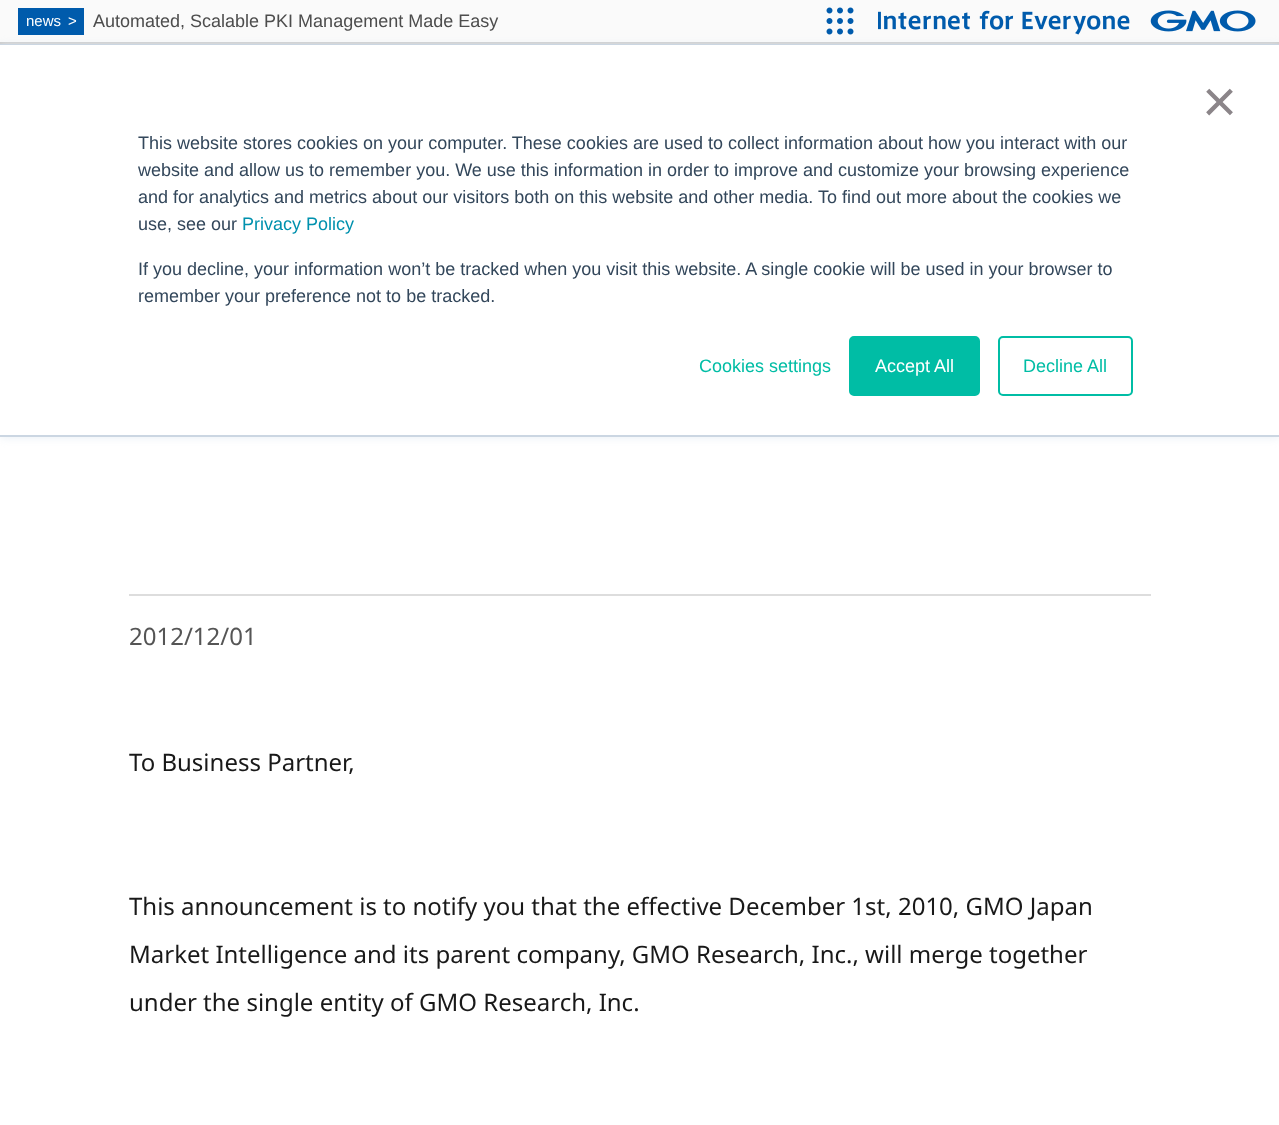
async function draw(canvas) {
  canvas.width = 1279
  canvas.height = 1125
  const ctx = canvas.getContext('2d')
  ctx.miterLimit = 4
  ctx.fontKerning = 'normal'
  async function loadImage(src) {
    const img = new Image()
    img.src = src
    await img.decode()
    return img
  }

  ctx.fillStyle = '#fff'
  ctx.fillRect(0, 0, 1279, 1125)
  ctx.fillStyle = '#fafafa'
  ctx.fillRect(0, 0, 1279, 42)
  ctx.fillStyle = '#c8c8c8'
  ctx.fillRect(0, 42, 1279, 2)
  ctx.fillStyle = '#005bac'
  ctx.fillRect(18, 8, 66, 27)
  ctx.font = '15px Liberation Sans'
  ctx.fillStyle = '#fff'
  ctx.fillText('news', 26, 26)
  ctx.fillText('>', 68, 26)
  ctx.font = '18px Liberation Sans'
  ctx.fillStyle = '#4d4d4d'
  ctx.fillText('Automated, Scalable PKI Management Made Easy', 93, 27)
  ctx.drawImage(await loadImage('image0.png'), 826, 7, 28, 28)
  ctx.drawImage(await loadImage('image1.png'), 878, 10, 378, 25)
  ctx.fillStyle = '#eaf0f6'
  ctx.filter = 'blur(4px)'
  ctx.beginPath()
  ctx.rect(0, 45, 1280, 393)
  ctx.fill()
  ctx.filter = 'none'
  ctx.fillStyle = '#cbd6e2'
  ctx.fillRect(0, 44, 1279, 1)
  ctx.fillRect(0, 435, 1279, 2)
  ctx.fillStyle = '#fff'
  ctx.fillRect(0, 45, 1279, 390)
  ctx.font = '60px Liberation Sans'
  ctx.fillStyle = '#8b8589'
  ctx.fillText('×', 1202, 122)
  ctx.font = '18px Liberation Sans'
  ctx.fillStyle = '#33475b'
  ctx.fillText('This website stores cookies on your computer. These cookies are used to collect information about how you interact with our', 138, 149)
  ctx.fillText('website and allow us to remember you. We use this information in order to improve and customize your browsing experience', 138, 176)
  ctx.fillText('and for analytics and metrics about our visitors both on this website and other media. To find out more about the cookies we', 138, 203)
  ctx.fillText('use, see our', 138, 230)
  ctx.fillStyle = '#0091ae'
  ctx.fillText('Privacy Policy', 242, 230)
  ctx.fillStyle = '#33475b'
  ctx.fillText('If you decline, your information won’t be tracked when you visit this website. A single cookie will be used in your browser to', 138, 275)
  ctx.fillText('remember your preference not to be tracked.', 138, 302)
  ctx.fillStyle = '#00bda5'
  ctx.fillText('Cookies settings', 699, 372)
  ctx.beginPath()
  ctx.roundRect(850, 337, 129, 58, 4)
  ctx.fill()
  ctx.strokeStyle = '#00bda5'
  ctx.lineWidth = 2
  ctx.stroke()
  ctx.fillStyle = '#fff'
  ctx.fillText('Accept All', 875, 372)
  ctx.beginPath()
  ctx.roundRect(999, 337, 133, 58, 4)
  ctx.stroke()
  ctx.fillStyle = '#00bda5'
  ctx.fillText('Decline All', 1023, 372)
  ctx.fillStyle = '#ddd'
  ctx.fillRect(129, 594, 1022, 2)
  ctx.font = '24px Noto Sans'
  ctx.fillStyle = '#555'
  ctx.fillText('2012/12/01', 129, 645)
  ctx.fillStyle = '#191919'
  ctx.fillText('To Business Partner,', 129, 771)
  ctx.fillText('This announcement is to notify you that the effective December 1st, 2010, GMO Japan', 129, 915)
  ctx.fillText('Market Intelligence and its parent company, GMO Research, Inc., will merge together', 129, 963)
  ctx.fillText('under the single entity of GMO Research, Inc.', 129, 1011)
}

draw(document.querySelector('canvas'))
